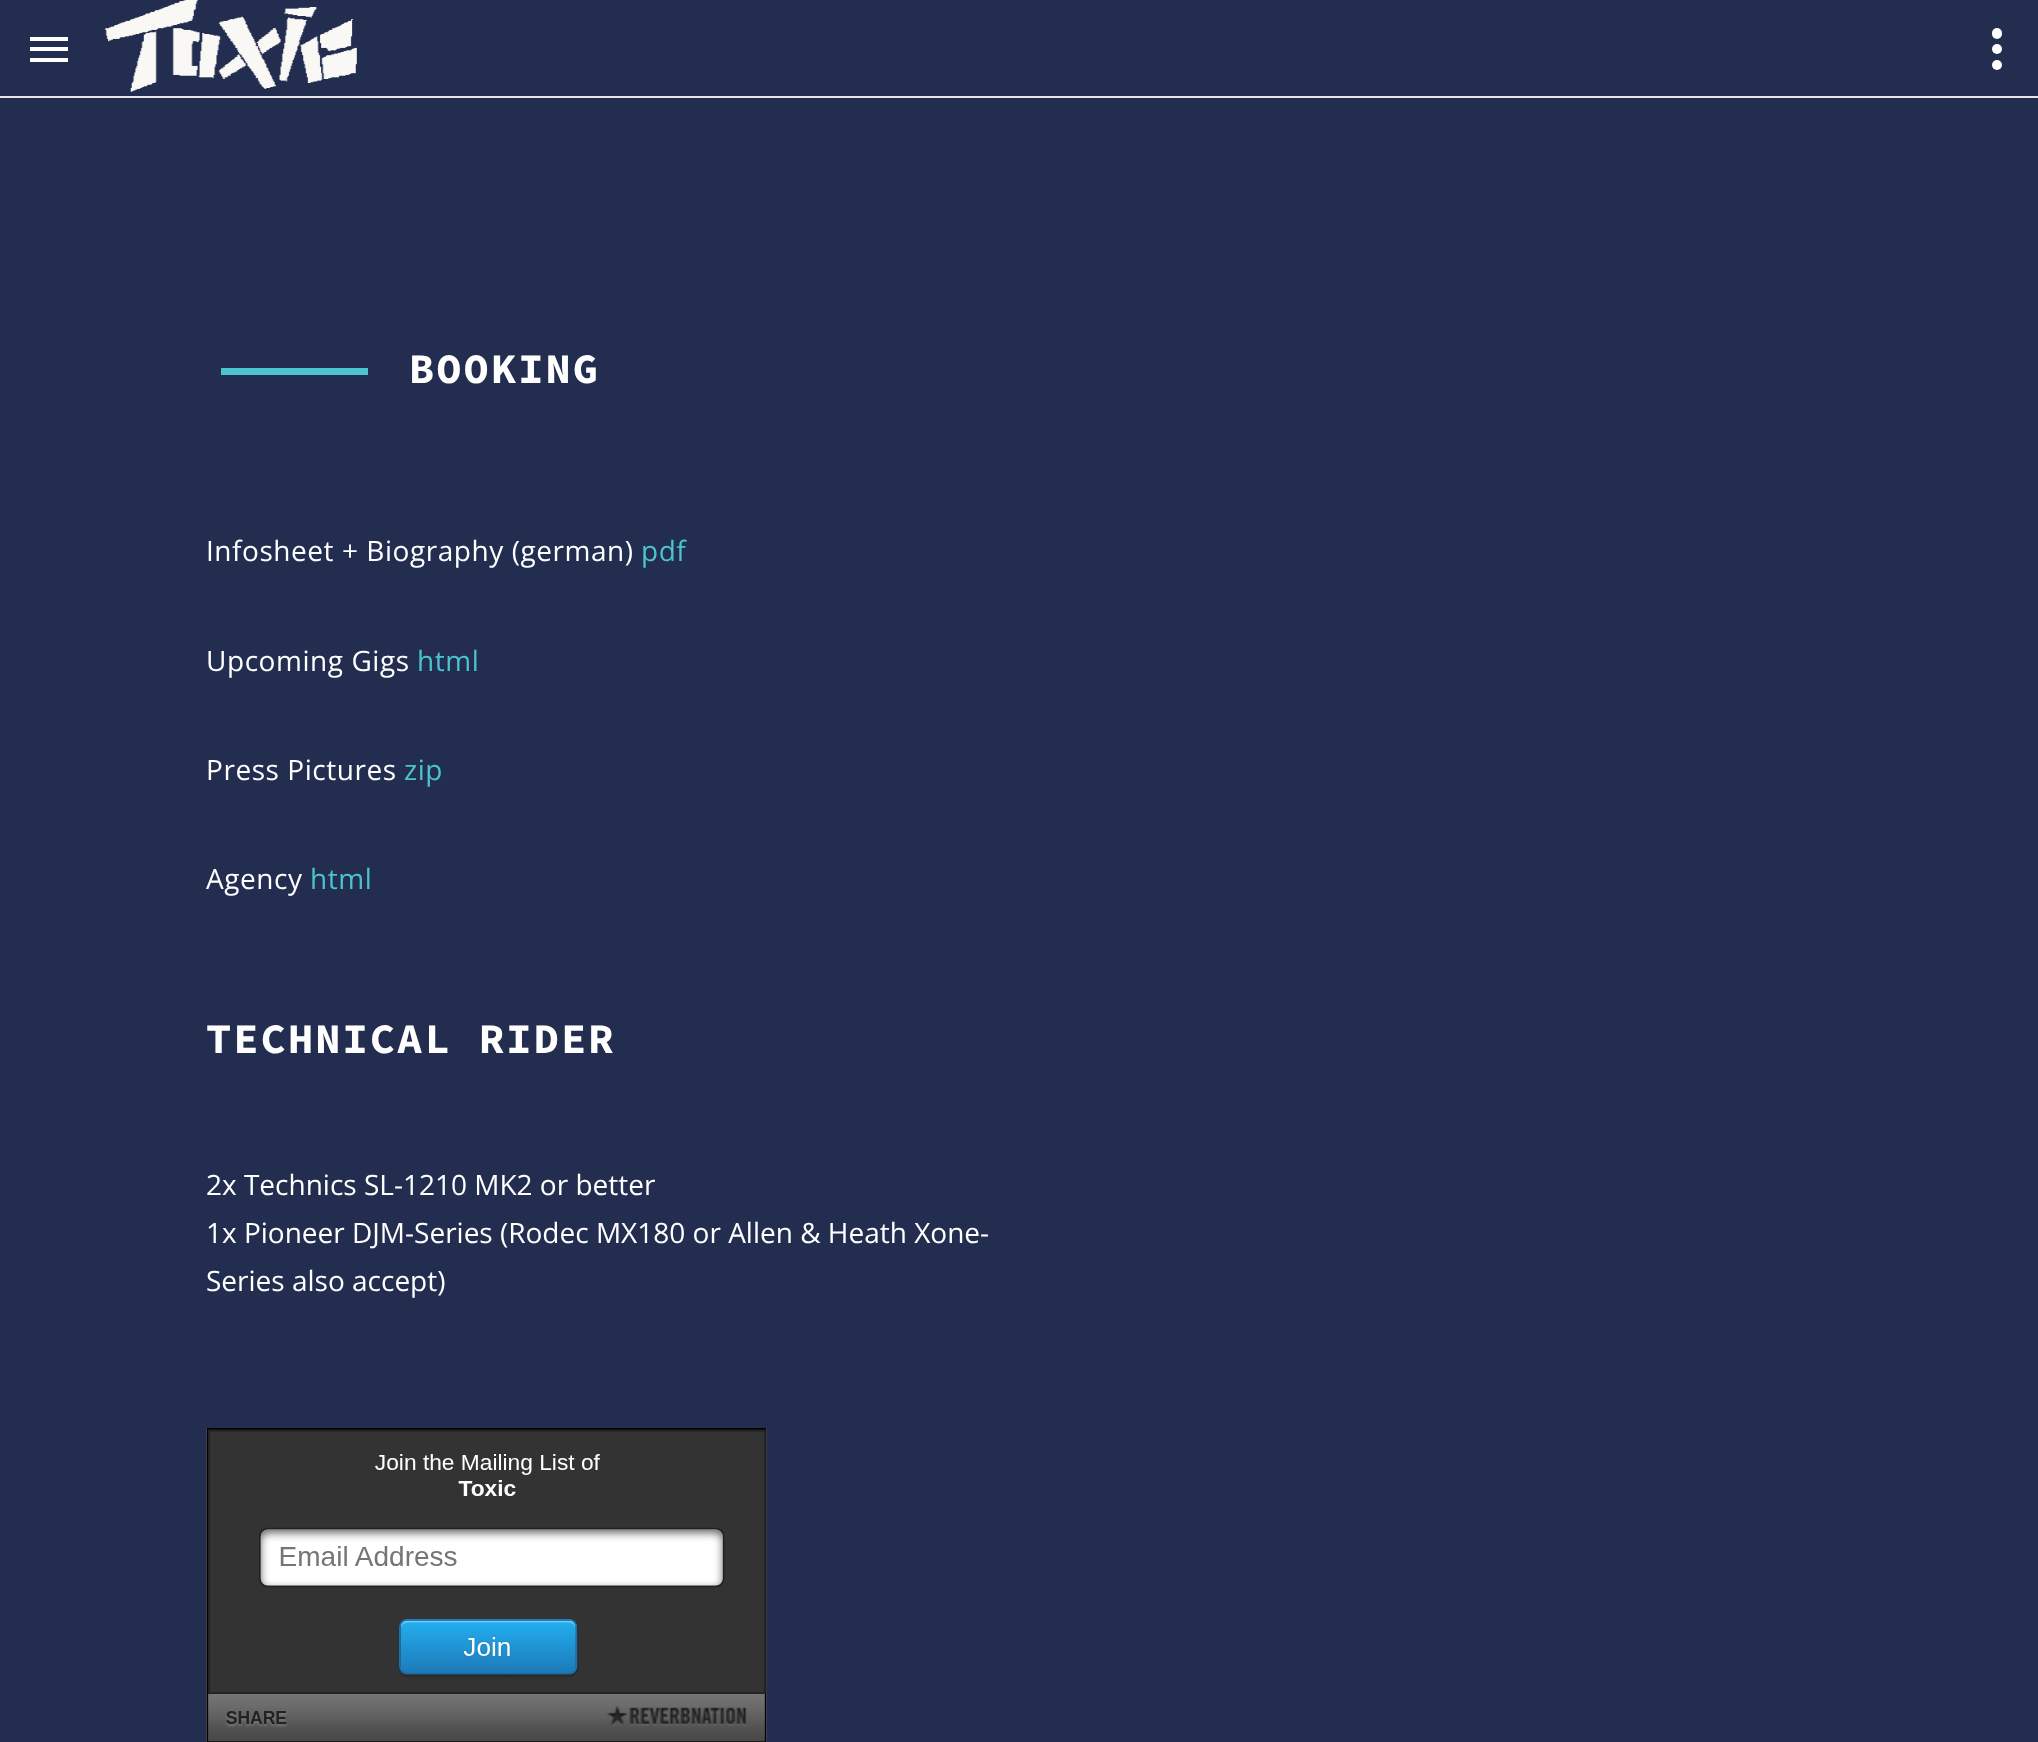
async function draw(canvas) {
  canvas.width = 2038
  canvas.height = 1742
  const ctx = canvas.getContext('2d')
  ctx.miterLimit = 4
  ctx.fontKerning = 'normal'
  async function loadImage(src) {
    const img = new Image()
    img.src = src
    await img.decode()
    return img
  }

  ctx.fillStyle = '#222d4f'
  ctx.fillRect(0, 0, 2038, 1742)
  ctx.fillStyle = '#e5e7e9'
  ctx.fillRect(0, 96, 2038, 2)
  ctx.fillStyle = '#fff'
  ctx.fillRect(30, 47, 38, 4)
  ctx.fillRect(30, 37, 38, 4)
  ctx.fillRect(30, 58, 38, 4)
  ctx.drawImage(await loadImage('image0.png'), 104, 0, 253, 92)
  ctx.beginPath()
  ctx.arc(1997, 49, 5, 0, 2 * Math.PI)
  ctx.fill()
  ctx.beginPath()
  ctx.roundRect(1992, 28, 10, 11, 5)
  ctx.fill()
  ctx.beginPath()
  ctx.arc(1997, 65, 5, 0, 2 * Math.PI)
  ctx.fill()
  ctx.fillStyle = '#4ac4cf'
  ctx.fillRect(221, 368, 147, 7)
  ctx.letterSpacing = '2.1px'
  ctx.font = 'bold 42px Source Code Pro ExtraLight'
  ctx.fillStyle = '#fff'
  ctx.fillText('BOOKING', 409, 383)
  ctx.letterSpacing = '0.55px'
  ctx.font = '28px Open Sans'
  ctx.fillText('Infosheet + Biography (german)', 206, 561)
  ctx.fillStyle = '#4ac4cf'
  ctx.fillText('pdf', 641, 561)
  ctx.fillStyle = '#fff'
  ctx.fillText('Upcoming Gigs', 206, 671)
  ctx.fillStyle = '#4ac4cf'
  ctx.fillText('html', 417, 671)
  ctx.fillStyle = '#fff'
  ctx.fillText('Press Pictures', 206, 780)
  ctx.fillStyle = '#4ac4cf'
  ctx.fillText('zip', 404, 780)
  ctx.fillStyle = '#fff'
  ctx.fillText('Agency', 206, 889)
  ctx.fillStyle = '#4ac4cf'
  ctx.fillText('html', 310, 889)
  ctx.letterSpacing = '2.1px'
  ctx.font = 'bold 42px Source Code Pro ExtraLight'
  ctx.fillStyle = '#fff'
  ctx.fillText('TECHNICAL RIDER', 206, 1053)
  ctx.letterSpacing = '0px'
  ctx.font = '28px Open Sans'
  ctx.fillText('2x Technics SL-1210 MK2 or better', 206, 1195)
  ctx.fillText('1x Pioneer DJM-Series (Rodec MX180 or Allen & Heath Xone-', 206, 1243)
  ctx.fillText('Series also accept)', 206, 1291)
  ctx.drawImage(await loadImage('image1.png'), 206, 1428, 561, 314)
}

draw(document.querySelector('canvas'))
